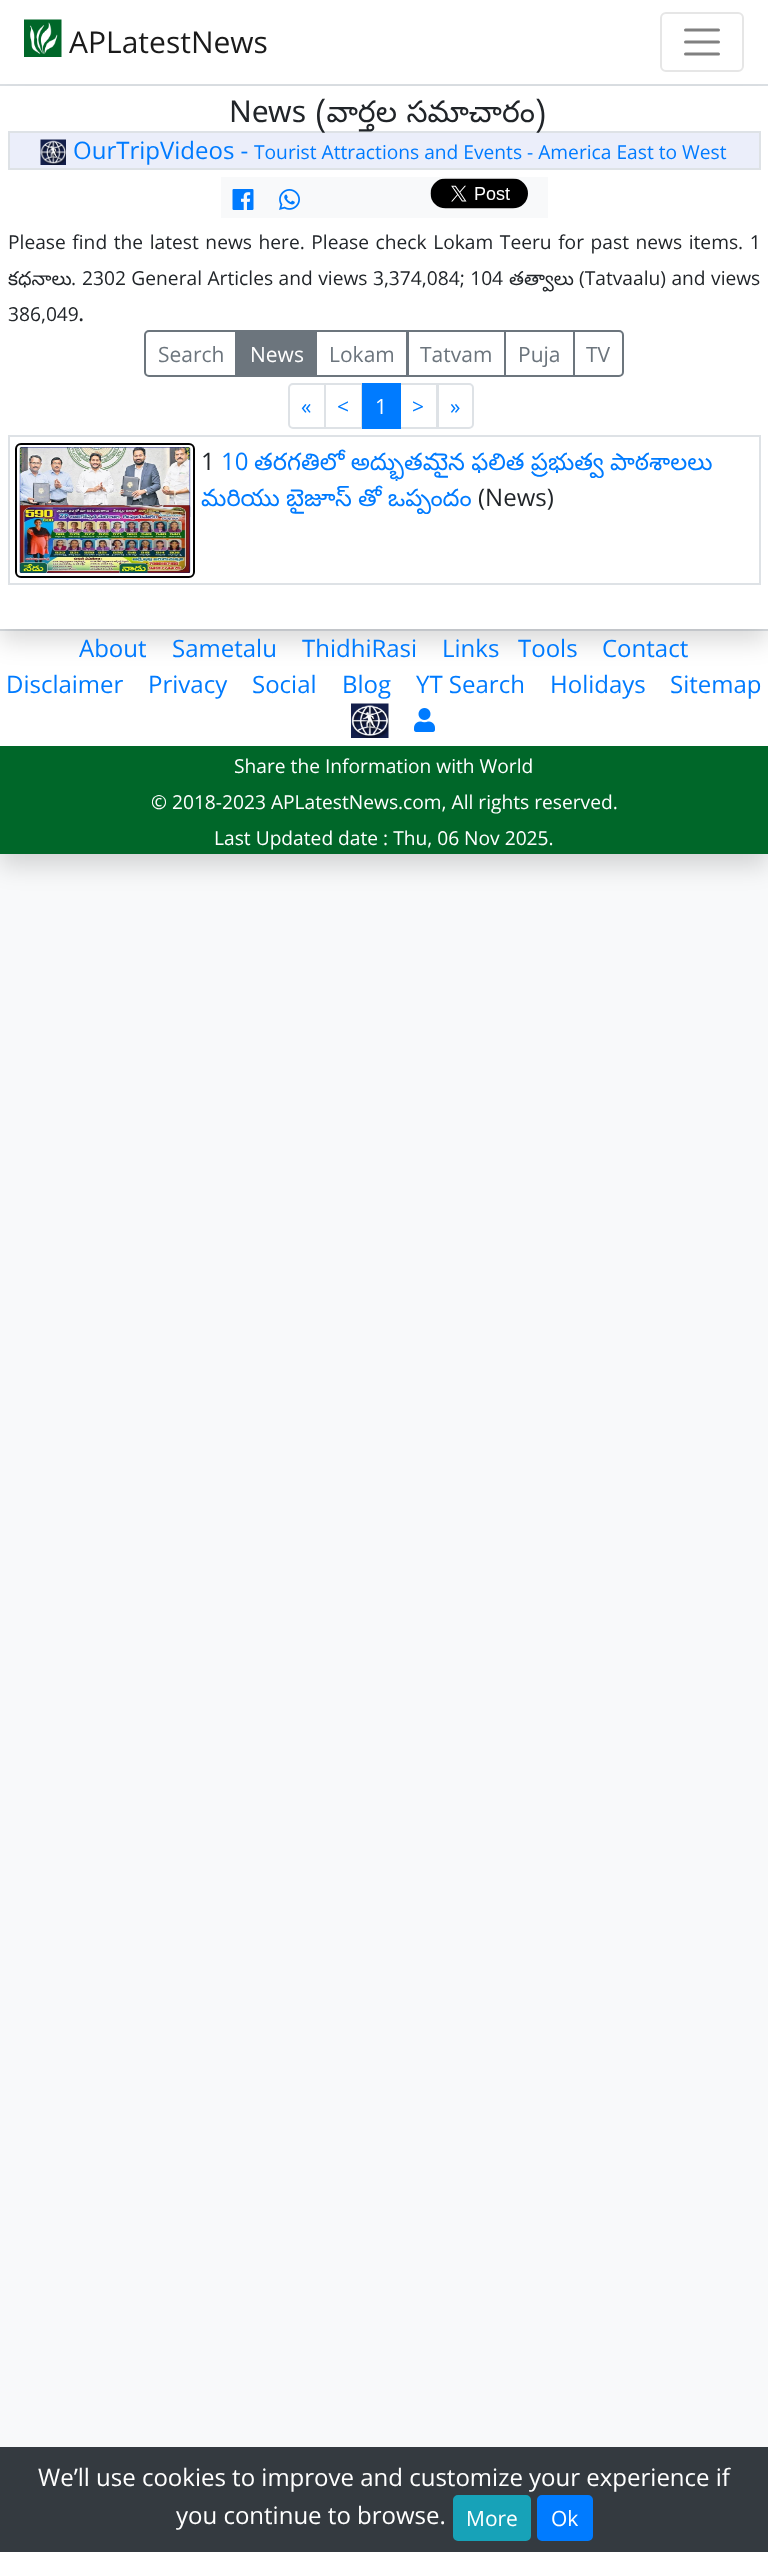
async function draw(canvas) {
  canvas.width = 768
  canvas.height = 2552
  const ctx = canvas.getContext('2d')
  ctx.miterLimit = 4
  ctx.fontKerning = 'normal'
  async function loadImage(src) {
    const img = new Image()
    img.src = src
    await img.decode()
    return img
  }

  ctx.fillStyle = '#f8f9fa'
  ctx.fillRect(0, 0, 768, 2552)
  ctx.fillStyle = '#dee2e6'
  ctx.fillRect(0, 84, 768, 2)
  ctx.fillStyle = '#00000026'
  ctx.filter = 'blur(12px)'
  ctx.beginPath()
  ctx.rect(0, 641, 768, 225)
  ctx.fill()
  ctx.filter = 'none'
  ctx.fillStyle = '#fff'
  ctx.fillRect(0, 631, 768, 115)
  ctx.fillStyle = '#dee2e6'
  ctx.fillRect(0, 629, 768, 2)
  ctx.fillStyle = '#00000026'
  ctx.filter = 'blur(12px)'
  ctx.beginPath()
  ctx.rect(0, 98, 768, 543)
  ctx.fill()
  ctx.filter = 'none'
  ctx.fillStyle = '#fff'
  ctx.fillRect(0, 0, 768, 84)
  ctx.drawImage(await loadImage('image0.png'), 24, 19, 38, 38)
  ctx.font = '30px Open Sans'
  ctx.fillStyle = '#1a1a1a'
  ctx.fillText('APLatestNews', 69, 53)
  ctx.beginPath()
  ctx.roundRect(661, 13, 82, 58, 5)
  ctx.strokeStyle = '#e6e6e6'
  ctx.lineWidth = 2
  ctx.stroke()
  ctx.beginPath()
  ctx.moveTo(685.5, 30)
  ctx.lineTo(718.5, 30)
  ctx.moveTo(685.5, 42)
  ctx.lineTo(718.5, 42)
  ctx.moveTo(685.5, 54)
  ctx.lineTo(718.5, 54)
  ctx.strokeStyle = '#808080'
  ctx.lineWidth = 3
  ctx.lineCap = 'round'
  ctx.stroke()
  ctx.fillStyle = '#fff'
  ctx.fillRect(0, 86, 768, 543)
  ctx.fillStyle = '#ebeefa'
  ctx.beginPath()
  ctx.rect(9, 132, 751, 37)
  ctx.fill()
  ctx.strokeStyle = '#dee2e6'
  ctx.lineWidth = 2
  ctx.stroke()
  ctx.wordSpacing = '1px'
  ctx.font = '30px Noto Sans Telugu'
  ctx.fillStyle = '#212529'
  ctx.fillText('News (వార్తల సమాచారం)', 229, 122)
  ctx.drawImage(await loadImage('image1.png'), 40, 139, 26, 26)
  ctx.wordSpacing = '0px'
  ctx.font = '24px Open Sans'
  ctx.fillStyle = '#007bff'
  ctx.fillText('OurTripVideos -', 73, 159)
  ctx.font = '19.2px Open Sans'
  ctx.fillText('Tourist Attractions and Events - America East to West', 254, 159)
  ctx.fillStyle = '#f8f9fa'
  ctx.fillRect(221, 177, 327, 41)
  ctx.drawImage(await loadImage('image2.png'), 232, 189, 22, 21)
  ctx.drawImage(await loadImage('image3.png'), 279, 189, 21, 21)
  ctx.drawImage(await loadImage('image4.png'), 430, 178, 98, 31)
  ctx.wordSpacing = '1.6px'
  ctx.fillStyle = '#212529'
  ctx.fillText('Please find the latest news here. Please check Lokam Teeru for past news items. 1', 8, 249)
  ctx.wordSpacing = '0px'
  ctx.font = '19.2px Noto Sans Telugu'
  ctx.fillText('కధనాలు', 8, 285)
  ctx.font = '19.2px Open Sans'
  ctx.fillText('.', 71, 285)
  ctx.wordSpacing = '0.5px'
  ctx.fillText('2302 General Articles and views 3,374,084; 104', 82, 285)
  ctx.wordSpacing = '0px'
  ctx.font = '19.2px Noto Sans Telugu'
  ctx.fillText('తత్వాలు', 509, 285)
  ctx.wordSpacing = '0.5px'
  ctx.font = '19.2px Open Sans'
  ctx.fillText('(Tatvaalu) and views', 579, 285)
  ctx.wordSpacing = '0px'
  ctx.fillText('386,049', 8, 321)
  ctx.font = '24px Open Sans'
  ctx.fillText('.', 78, 321)
  ctx.beginPath()
  ctx.roundRect(145, 331, 91, 45, [4, 0, 0, 4])
  ctx.strokeStyle = '#6c757d'
  ctx.stroke()
  ctx.font = '21px Open Sans'
  ctx.fillStyle = '#6c757d'
  ctx.fillText('Search', 158, 362)
  ctx.fillRect(237, 330, 78, 47)
  ctx.fillStyle = '#fff'
  ctx.fillText('News', 250, 362)
  ctx.strokeRect(316, 331, 91, 45)
  ctx.fillStyle = '#6c757d'
  ctx.fillText('Lokam', 329, 362)
  ctx.strokeRect(408, 331, 97, 45)
  ctx.fillText('Tatvam', 420, 362)
  ctx.strokeRect(505, 331, 69, 45)
  ctx.fillText('Puja', 518, 362)
  ctx.beginPath()
  ctx.roundRect(574, 331, 49, 45, [0, 4, 4, 0])
  ctx.stroke()
  ctx.fillText('TV', 586, 362)
  ctx.beginPath()
  ctx.roundRect(289, 384, 36, 44, [4, 0, 0, 4])
  ctx.strokeStyle = '#dee2e6'
  ctx.stroke()
  ctx.fillStyle = '#007bff'
  ctx.fillText('«', 301, 414)
  ctx.strokeRect(325, 384, 37, 44)
  ctx.fillText('<', 337, 414)
  ctx.strokeRect(400, 384, 37, 44)
  ctx.fillRect(362, 383, 39, 46)
  ctx.fillStyle = '#fff'
  ctx.fillText('1', 375, 414)
  ctx.fillStyle = '#007bff'
  ctx.fillText('>', 412, 414)
  ctx.fillStyle = '#fff'
  ctx.beginPath()
  ctx.roundRect(438, 384, 35, 44, [0, 4, 4, 0])
  ctx.fill()
  ctx.stroke()
  ctx.fillStyle = '#007bff'
  ctx.fillText('»', 450, 414)
  ctx.strokeRect(9, 436, 751, 148)
  ctx.beginPath()
  ctx.roundRect(16, 444, 178, 133, 5)
  ctx.strokeStyle = '#000'
  ctx.stroke()
  ctx.drawImage(await loadImage('image5.png'), 19, 447, 172, 126)
  ctx.font = '24px Open Sans'
  ctx.fillText('10', 221, 470)
  ctx.wordSpacing = '-0.5px'
  ctx.font = '24px Noto Sans Telugu'
  ctx.fillText('తరగతిలో అద్భుతమైన ఫలిత ప్రభుత్వ పాఠశాలలు', 254, 470)
  ctx.fillText('మరియు బైజూస్‌ తో ఒప్పందం', 201, 506)
  ctx.wordSpacing = '0px'
  ctx.font = '24px Open Sans'
  ctx.fillStyle = '#212529'
  ctx.fillText('1', 201, 470)
  ctx.fillText('(News)', 478, 506)
  ctx.fillStyle = '#007bff'
  ctx.fillText('About', 79, 657)
  ctx.fillText('Sametalu', 172, 657)
  ctx.fillText('ThidhiRasi', 302, 657)
  ctx.fillText('Links', 442, 657)
  ctx.fillText('Tools', 518, 657)
  ctx.fillText('Contact', 602, 657)
  ctx.fillText('Disclaimer', 6, 693)
  ctx.fillText('Privacy', 148, 693)
  ctx.fillText('Social', 252, 693)
  ctx.fillText('Blog', 342, 693)
  ctx.fillText('YT Search', 416, 693)
  ctx.fillText('Holidays', 550, 693)
  ctx.fillText('Sitemap', 670, 693)
  ctx.drawImage(await loadImage('image6.png'), 351, 703, 38, 35)
  ctx.drawImage(await loadImage('image7.png'), 414, 708, 21, 24)
  ctx.fillStyle = '#006729'
  ctx.fillRect(0, 746, 768, 108)
  ctx.font = '19.2px Open Sans'
  ctx.fillStyle = '#fff'
  ctx.fillText('Share the Information with World', 234, 773)
  ctx.fillText('© 2018-2023 APLatestNews.com, All rights reserved.', 151, 809)
  ctx.fillText('Last Updated date : Thu, 06 Nov 2025.', 214, 845)
  ctx.fillStyle = '#343a40'
  ctx.fillRect(0, 2447, 768, 105)
  ctx.font = '24px Open Sans'
  ctx.fillStyle = '#fff'
  ctx.fillText('We’ll use cookies to improve and customize your experience if', 38, 2486)
  ctx.fillText('you continue to browse.', 176, 2524)
  ctx.fillStyle = '#17a2b8'
  ctx.beginPath()
  ctx.roundRect(454, 2496, 76, 44, 4)
  ctx.fill()
  ctx.strokeStyle = '#17a2b8'
  ctx.stroke()
  ctx.font = '21px Open Sans'
  ctx.fillStyle = '#fff'
  ctx.fillText('More', 466, 2526)
  ctx.fillStyle = '#007bff'
  ctx.beginPath()
  ctx.roundRect(538, 2496, 54, 44, 4)
  ctx.fill()
  ctx.strokeStyle = '#007bff'
  ctx.stroke()
  ctx.fillStyle = '#fff'
  ctx.fillText('Ok', 551, 2526)
}

draw(document.querySelector('canvas'))
